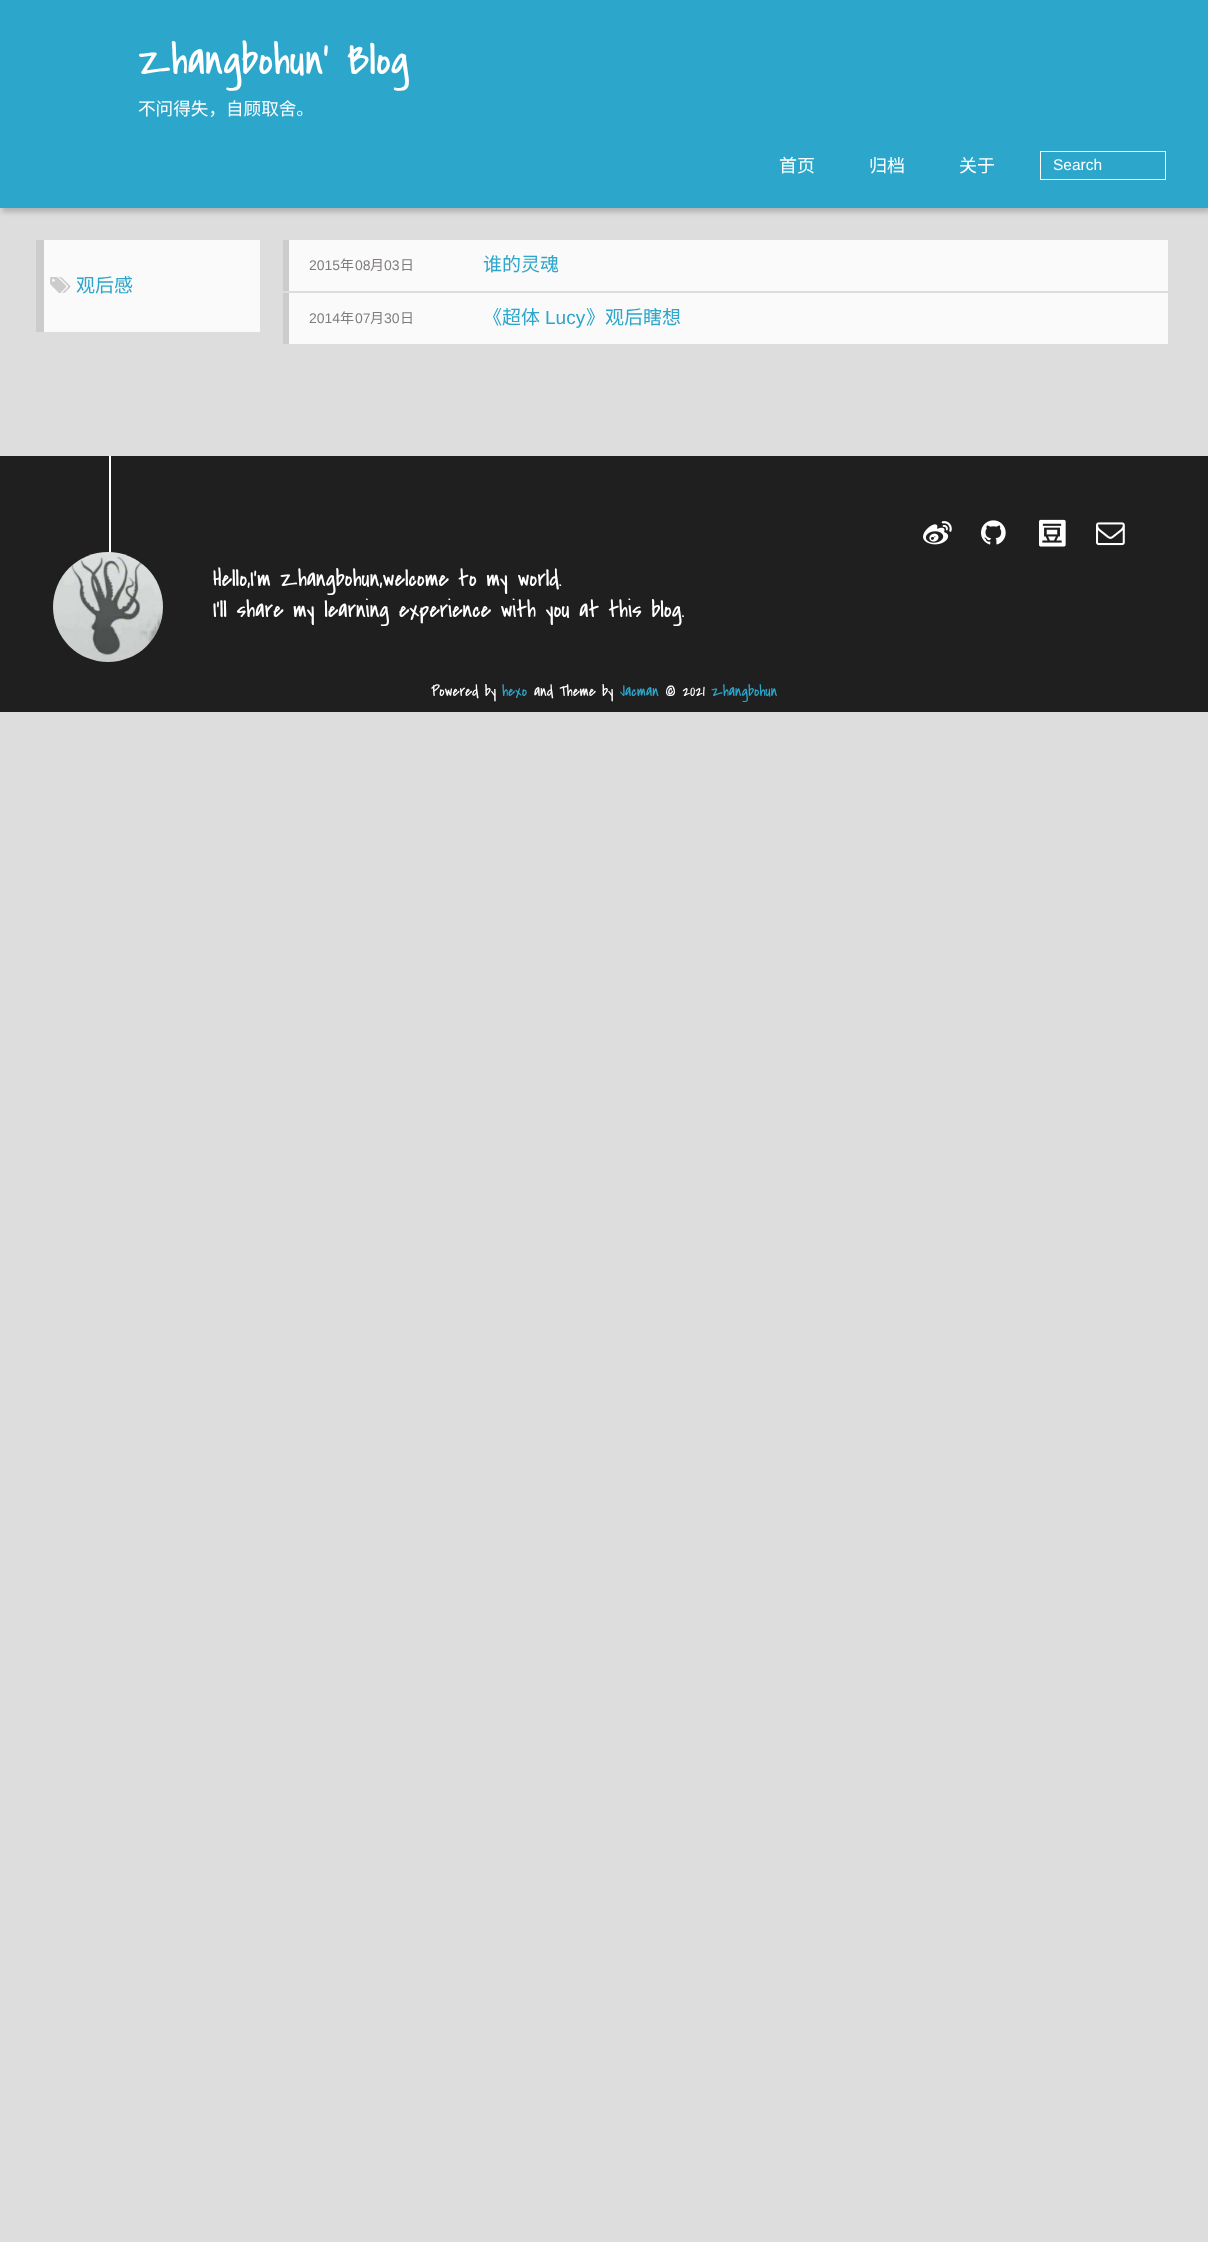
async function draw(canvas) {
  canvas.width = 1208
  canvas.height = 2242
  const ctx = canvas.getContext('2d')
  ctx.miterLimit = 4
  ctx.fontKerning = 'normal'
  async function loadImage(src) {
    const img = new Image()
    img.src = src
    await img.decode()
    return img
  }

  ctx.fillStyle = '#ddd'
  ctx.fillRect(0, 0, 1208, 2242)
  ctx.fillStyle = '#03030333'
  ctx.filter = 'blur(2.5px)'
  ctx.beginPath()
  ctx.rect(2, 4, 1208, 208)
  ctx.fill()
  ctx.filter = 'none'
  ctx.fillStyle = '#2ca6cb'
  ctx.fillRect(0, 0, 1208, 208)
  ctx.font = '44.75px Covered By Your Grace'
  ctx.fillStyle = '#fff'
  ctx.fillText('Zhangbohun\' Blog', 138, 74)
  ctx.font = '17.6px Noto Sans CJK SC'
  ctx.fillText('不问得失，自顾取舍。', 138, 115)
  ctx.font = '18px Noto Sans CJK SC'
  ctx.fillText('首页', 779, 172)
  ctx.fillText('归档', 869, 172)
  ctx.fillText('关于', 959, 172)
  ctx.strokeStyle = '#fff'
  ctx.strokeRect(1040.5, 151.5, 125, 28)
  ctx.font = '15.5px Liberation Sans'
  ctx.fillText('Search', 1053, 170)
  ctx.fillStyle = '#fafafa'
  ctx.fillRect(44, 240, 216, 92)
  ctx.fillStyle = '#ccc'
  ctx.fillRect(36, 240, 8, 92)
  ctx.drawImage(await loadImage('image0.png'), 50, 277, 21, 17)
  ctx.font = '19px Noto Sans CJK SC'
  ctx.fillStyle = '#2ca6cb'
  ctx.fillText('观后感', 76, 292)
  ctx.fillStyle = '#fafafa'
  ctx.fillRect(289, 240, 879, 51)
  ctx.fillStyle = '#ccc'
  ctx.fillRect(283, 240, 6, 51)
  ctx.font = '14px Liberation Sans'
  ctx.fillStyle = '#817c7c'
  ctx.fillText('2015', 309, 270)
  ctx.font = '14px Noto Sans CJK SC'
  ctx.fillText('年', 340, 270)
  ctx.font = '14px Liberation Sans'
  ctx.fillText('08', 355, 270)
  ctx.font = '14px Noto Sans CJK SC'
  ctx.fillText('月', 370, 270)
  ctx.font = '14px Liberation Sans'
  ctx.fillText('03', 384, 270)
  ctx.font = '14px Noto Sans CJK SC'
  ctx.fillText('日', 400, 270)
  ctx.font = '19px Noto Sans CJK SC'
  ctx.fillStyle = '#2ca6cb'
  ctx.fillText('谁的灵魂', 483, 271)
  ctx.fillStyle = '#fafafa'
  ctx.fillRect(289, 293, 879, 51)
  ctx.fillStyle = '#ccc'
  ctx.fillRect(283, 293, 6, 51)
  ctx.font = '14px Liberation Sans'
  ctx.fillStyle = '#817c7c'
  ctx.fillText('2014', 309, 323)
  ctx.font = '14px Noto Sans CJK SC'
  ctx.fillText('年', 340, 323)
  ctx.font = '14px Liberation Sans'
  ctx.fillText('07', 355, 323)
  ctx.font = '14px Noto Sans CJK SC'
  ctx.fillText('月', 370, 323)
  ctx.font = '14px Liberation Sans'
  ctx.fillText('30', 384, 323)
  ctx.font = '14px Noto Sans CJK SC'
  ctx.fillText('日', 400, 323)
  ctx.font = '19px Noto Sans CJK SC'
  ctx.fillStyle = '#2ca6cb'
  ctx.fillText('《超体', 483, 324)
  ctx.font = '19px Liberation Sans'
  ctx.fillText('Lucy', 545, 324)
  ctx.font = '19px Noto Sans CJK SC'
  ctx.fillText('》观后瞎想', 586, 324)
  ctx.fillStyle = '#1f1f1f'
  ctx.fillRect(0, 456, 1208, 256)
  ctx.fillStyle = '#fff'
  ctx.fillRect(109, 456, 2, 100)
  ctx.drawImage(await loadImage('image1.png'), 53, 552, 110, 110)
  ctx.drawImage(await loadImage('image2.png'), 923, 521, 29, 24)
  ctx.drawImage(await loadImage('image3.png'), 981, 520, 25, 25)
  ctx.drawImage(await loadImage('image4.png'), 1039, 519, 27, 28)
  ctx.drawImage(await loadImage('image5.png'), 1096, 522, 29, 24)
  ctx.font = '24px Covered By Your Grace'
  ctx.fillText('Hello,I\'m Zhangbohun,welcome to my world.', 213, 586)
  ctx.fillText('I\'ll share my learning experience with you at this blog.', 213, 617)
  ctx.font = '16px Covered By Your Grace'
  ctx.fillText('Powered by', 431, 696)
  ctx.fillStyle = '#2ca6cb'
  ctx.fillText('hexo', 502, 696)
  ctx.fillStyle = '#fff'
  ctx.fillText('and Theme by', 534, 696)
  ctx.fillStyle = '#2ca6cb'
  ctx.fillText('Jacman', 620, 696)
  ctx.fillStyle = '#fff'
  ctx.fillText('© 2021', 665, 696)
  ctx.fillStyle = '#2ca6cb'
  ctx.fillText('zhangbohun', 711, 696)
}

draw(document.querySelector('canvas'))
